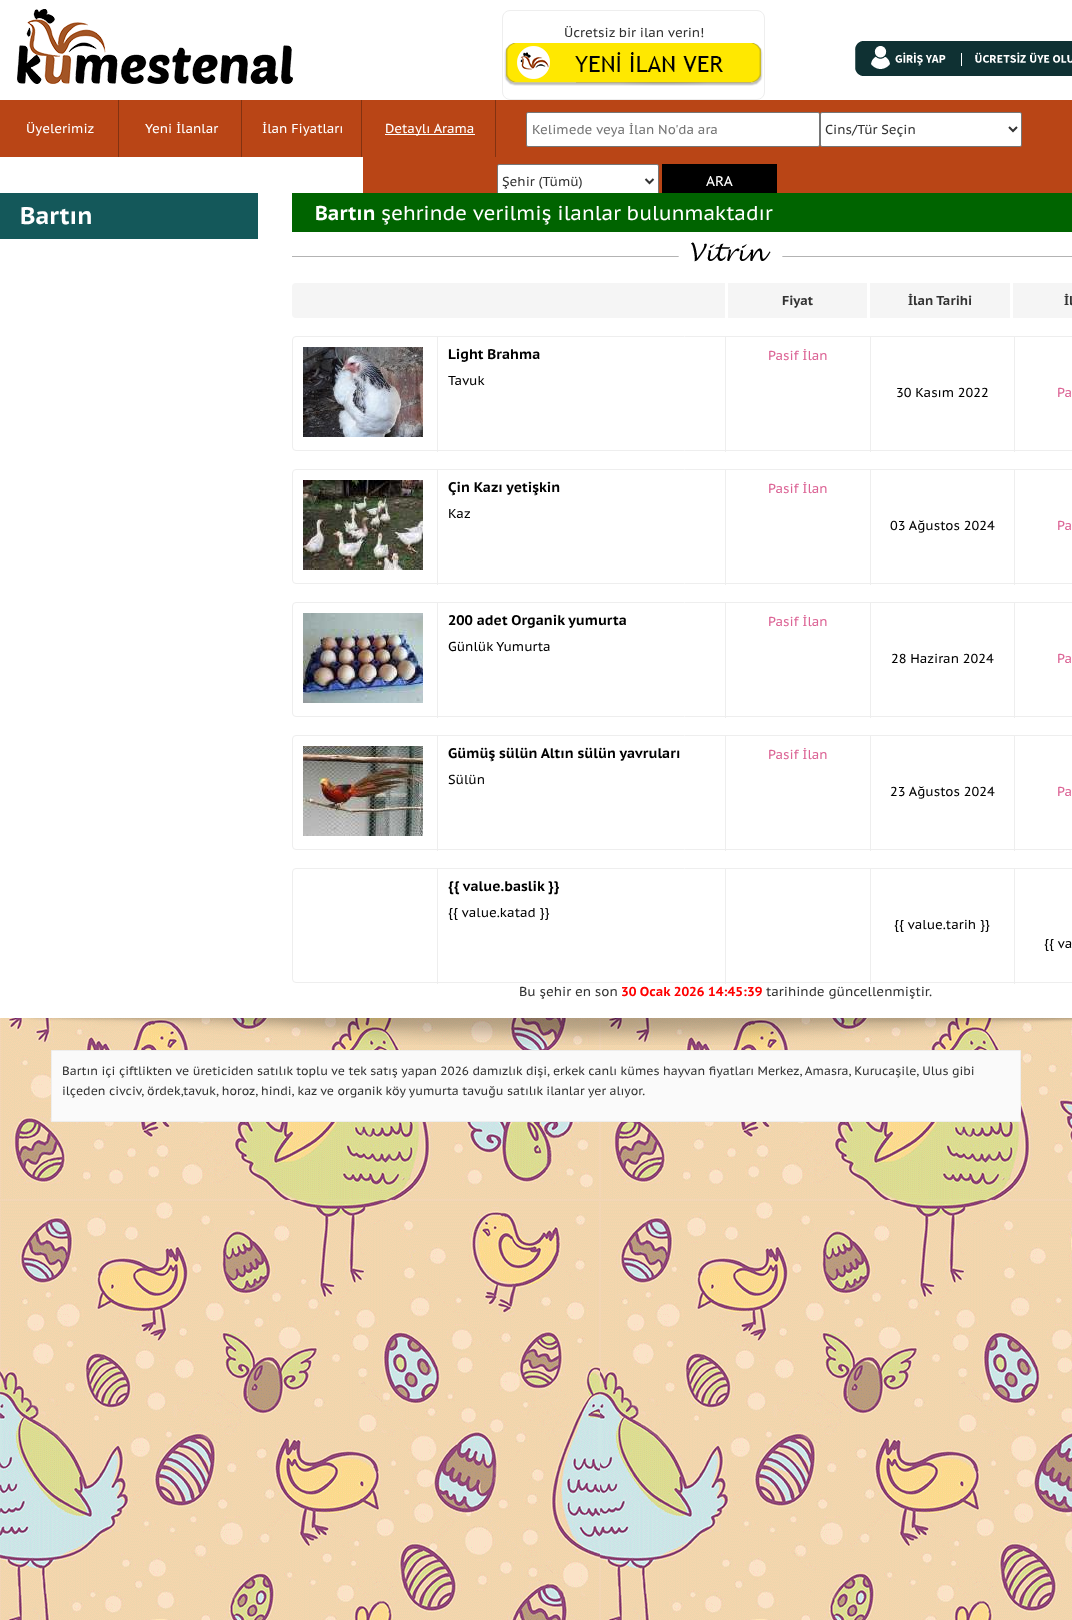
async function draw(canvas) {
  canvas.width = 1072
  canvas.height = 1620
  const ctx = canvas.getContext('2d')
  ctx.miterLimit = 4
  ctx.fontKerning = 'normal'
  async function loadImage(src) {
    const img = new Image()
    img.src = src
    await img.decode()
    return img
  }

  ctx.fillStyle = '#fff'
  ctx.fillRect(0, 0, 1072, 1620)
  ctx.drawImage(await loadImage('image0.png'), 0, 1018, 1072, 602)
  ctx.drawImage(await loadImage('image1.png'), 0, 1007, 1072, 38)
  ctx.drawImage(await loadImage('image2.png'), 17, 9, 276, 75)
  ctx.beginPath()
  ctx.roundRect(502.5, 10.5, 262, 89, 7.5)
  ctx.strokeStyle = '#eee'
  ctx.stroke()
  ctx.font = '13px PT Sans Caption'
  ctx.fillStyle = '#333'
  ctx.fillText('Ücretsiz bir ilan verin!', 564, 37)
  ctx.drawImage(await loadImage('image3.png'), 504, 43, 259, 43)
  ctx.drawImage(await loadImage('image4.png'), 855, 41, 109, 35)
  ctx.drawImage(await loadImage('image5.png'), 964, 41, 108, 35)
  ctx.fillStyle = '#b94516'
  ctx.fillRect(0, 100, 363, 57)
  ctx.fillStyle = '#823211'
  ctx.fillRect(118, 100, 1, 57)
  ctx.fillStyle = '#fff'
  ctx.fillText('Üyelerimiz', 26, 133)
  ctx.fillStyle = '#823211'
  ctx.fillRect(241, 100, 1, 57)
  ctx.fillStyle = '#fff'
  ctx.fillText('Yeni İlanlar', 145, 133)
  ctx.fillStyle = '#823211'
  ctx.fillRect(361, 100, 1, 57)
  ctx.fillStyle = '#fff'
  ctx.fillText('İlan Fiyatları', 262, 133)
  ctx.fillStyle = '#b94516'
  ctx.fillRect(363, 100, 709, 93)
  ctx.fillStyle = '#823211'
  ctx.fillRect(495, 100, 1, 57)
  ctx.fillStyle = '#fff'
  ctx.fillRect(385, 134, 90, 1)
  ctx.fillText('Detaylı Arama', 385, 133)
  ctx.beginPath()
  ctx.roundRect(526.5, 112.5, 293, 34, 1.5)
  ctx.fill()
  ctx.strokeStyle = '#767676'
  ctx.stroke()
  ctx.fillStyle = '#757575'
  ctx.fillText('Kelimede veya İlan No\'da ara', 532, 134)
  ctx.fillStyle = '#fff'
  ctx.beginPath()
  ctx.roundRect(820.5, 112.5, 201, 34, 1.5)
  ctx.fill()
  ctx.stroke()
  ctx.beginPath()
  ctx.moveTo(1009, 127)
  ctx.lineTo(1013, 131)
  ctx.lineTo(1017, 127)
  ctx.strokeStyle = '#333'
  ctx.lineWidth = 2
  ctx.stroke()
  ctx.fillStyle = '#333'
  ctx.fillText('Cins/Tür Seçin', 825, 134)
  ctx.fillStyle = '#fff'
  ctx.beginPath()
  ctx.roundRect(497.5, 164.5, 161, 34, 1.5)
  ctx.fill()
  ctx.strokeStyle = '#767676'
  ctx.lineWidth = 1
  ctx.stroke()
  ctx.beginPath()
  ctx.moveTo(645.5, 179)
  ctx.lineTo(649.5, 183)
  ctx.lineTo(653.5, 179)
  ctx.strokeStyle = '#333'
  ctx.lineWidth = 2
  ctx.stroke()
  ctx.fillStyle = '#333'
  ctx.fillText('Şehir (Tümü)', 502, 186)
  ctx.fillStyle = '#000'
  ctx.fillRect(662, 164, 115, 29)
  ctx.font = '14px PT Sans Caption'
  ctx.fillStyle = '#fff'
  ctx.fillText('ARA', 706, 186)
  ctx.fillStyle = '#14585a'
  ctx.fillRect(0, 193, 258, 46)
  ctx.font = 'bold 24px PT Sans Caption'
  ctx.fillStyle = '#fff'
  ctx.fillText('Bartın', 20, 224)
  ctx.fillStyle = '#006400'
  ctx.fillRect(292, 193, 780, 39)
  ctx.font = 'bold 20px PT Sans Caption'
  ctx.fillStyle = '#fff'
  ctx.fillText('Bartın', 315, 220)
  ctx.font = '20px PT Sans Caption'
  ctx.fillText('şehrinde verilmiş ilanlar bulunmaktadır', 381, 220)
  ctx.drawImage(await loadImage('image6.png'), 292, 242, 780, 20)
  ctx.fillStyle = '#f5f5f5'
  ctx.beginPath()
  ctx.roundRect(292, 283, 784, 35, 4)
  ctx.fill()
  ctx.fillStyle = '#fff'
  ctx.fillRect(725, 283, 3, 35)
  ctx.font = 'bold 13px PT Sans Caption'
  ctx.fillStyle = '#333'
  ctx.fillText('Fiyat', 782, 305)
  ctx.fillStyle = '#fff'
  ctx.fillRect(867, 283, 3, 35)
  ctx.fillStyle = '#333'
  ctx.fillText('İlan Tarihi', 908, 305)
  ctx.fillStyle = '#fff'
  ctx.fillRect(1010, 283, 3, 35)
  ctx.fillStyle = '#333'
  ctx.fillText('İl', 1064, 305)
  ctx.beginPath()
  ctx.roundRect(292.5, 336.5, 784, 114, 3.5)
  ctx.strokeStyle = '#eee'
  ctx.lineWidth = 1
  ctx.stroke()
  ctx.drawImage(await loadImage('image7.png'), 303, 347, 120, 90)
  ctx.fillStyle = '#eee'
  ctx.fillRect(437, 337, 1, 115)
  ctx.font = 'bold 14px PT Sans Caption'
  ctx.fillStyle = '#000'
  ctx.fillText('Light Brahma', 448, 359)
  ctx.font = '13px PT Sans Caption'
  ctx.fillText('Tavuk', 448, 385)
  ctx.fillStyle = '#eee'
  ctx.fillRect(725, 337, 1, 115)
  ctx.fillStyle = '#dc6596'
  ctx.fillText('Pasif İlan', 768, 360)
  ctx.fillStyle = '#eee'
  ctx.fillRect(870, 337, 1, 115)
  ctx.fillStyle = '#000'
  ctx.fillText('30 Kasım 2022', 896, 397)
  ctx.fillStyle = '#eee'
  ctx.fillRect(1014, 337, 1, 115)
  ctx.fillStyle = '#dc6596'
  ctx.fillText('Pa', 1057, 397)
  ctx.beginPath()
  ctx.roundRect(292.5, 469.5, 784, 114, 3.5)
  ctx.stroke()
  ctx.drawImage(await loadImage('image8.png'), 303, 480, 120, 90)
  ctx.fillStyle = '#eee'
  ctx.fillRect(437, 470, 1, 115)
  ctx.font = 'bold 14px PT Sans Caption'
  ctx.fillStyle = '#000'
  ctx.fillText('Çin Kazı yetişkin', 448, 492)
  ctx.font = '13px PT Sans Caption'
  ctx.fillText('Kaz', 448, 518)
  ctx.fillStyle = '#eee'
  ctx.fillRect(725, 470, 1, 115)
  ctx.fillStyle = '#dc6596'
  ctx.fillText('Pasif İlan', 768, 493)
  ctx.fillStyle = '#eee'
  ctx.fillRect(870, 470, 1, 115)
  ctx.fillStyle = '#000'
  ctx.fillText('03 Ağustos 2024', 890, 530)
  ctx.fillStyle = '#eee'
  ctx.fillRect(1014, 470, 1, 115)
  ctx.fillStyle = '#dc6596'
  ctx.fillText('Pa', 1057, 530)
  ctx.beginPath()
  ctx.roundRect(292.5, 602.5, 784, 114, 3.5)
  ctx.stroke()
  ctx.drawImage(await loadImage('image9.png'), 303, 613, 120, 90)
  ctx.fillStyle = '#eee'
  ctx.fillRect(437, 603, 1, 115)
  ctx.font = 'bold 14px PT Sans Caption'
  ctx.fillStyle = '#000'
  ctx.fillText('200 adet Organik yumurta', 448, 625)
  ctx.font = '13px PT Sans Caption'
  ctx.fillText('Günlük Yumurta', 448, 651)
  ctx.fillStyle = '#eee'
  ctx.fillRect(725, 603, 1, 115)
  ctx.fillStyle = '#dc6596'
  ctx.fillText('Pasif İlan', 768, 626)
  ctx.fillStyle = '#eee'
  ctx.fillRect(870, 603, 1, 115)
  ctx.fillStyle = '#000'
  ctx.fillText('28 Haziran 2024', 891, 663)
  ctx.fillStyle = '#eee'
  ctx.fillRect(1014, 603, 1, 115)
  ctx.fillStyle = '#dc6596'
  ctx.fillText('Pa', 1057, 663)
  ctx.beginPath()
  ctx.roundRect(292.5, 735.5, 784, 114, 3.5)
  ctx.stroke()
  ctx.drawImage(await loadImage('image10.png'), 303, 746, 120, 90)
  ctx.fillStyle = '#eee'
  ctx.fillRect(437, 736, 1, 115)
  ctx.font = 'bold 14px PT Sans Caption'
  ctx.fillStyle = '#000'
  ctx.fillText('Gümüş sülün Altın sülün yavruları', 448, 758)
  ctx.font = '13px PT Sans Caption'
  ctx.fillText('Sülün', 448, 784)
  ctx.fillStyle = '#eee'
  ctx.fillRect(725, 736, 1, 115)
  ctx.fillStyle = '#dc6596'
  ctx.fillText('Pasif İlan', 768, 759)
  ctx.fillStyle = '#eee'
  ctx.fillRect(870, 736, 1, 115)
  ctx.fillStyle = '#000'
  ctx.fillText('23 Ağustos 2024', 890, 796)
  ctx.fillStyle = '#eee'
  ctx.fillRect(1014, 736, 1, 115)
  ctx.fillStyle = '#dc6596'
  ctx.fillText('Pa', 1057, 796)
  ctx.beginPath()
  ctx.roundRect(292.5, 868.5, 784, 114, 3.5)
  ctx.stroke()
  ctx.fillStyle = '#eee'
  ctx.fillRect(437, 869, 1, 115)
  ctx.font = 'bold 14px PT Sans Caption'
  ctx.fillStyle = '#000'
  ctx.fillText('{{ value.baslik }}', 448, 891)
  ctx.font = '13px PT Sans Caption'
  ctx.fillText('{{ value.katad }}', 448, 917)
  ctx.fillStyle = '#eee'
  ctx.fillRect(725, 869, 1, 115)
  ctx.fillRect(870, 869, 1, 115)
  ctx.fillStyle = '#000'
  ctx.fillText('{{ value.tarih }}', 894, 929)
  ctx.fillStyle = '#eee'
  ctx.fillRect(1014, 869, 1, 115)
  ctx.fillStyle = '#000'
  ctx.fillText('{{ va', 1044, 948)
  ctx.fillStyle = '#333'
  ctx.fillText('Bu şehir en son', 519, 996)
  ctx.font = 'bold 13px PT Sans Caption'
  ctx.fillStyle = '#f00'
  ctx.fillText('30 Ocak 2026 14:45:39', 621, 996)
  ctx.font = '13px PT Sans Caption'
  ctx.fillStyle = '#333'
  ctx.fillText('tarihinde güncellenmiştir.', 766, 996)
  ctx.fillStyle = '#fafafa'
  ctx.beginPath()
  ctx.rect(51.5, 1050.5, 969, 71)
  ctx.fill()
  ctx.stroke()
  ctx.font = '12px PT Sans Caption'
  ctx.fillStyle = '#333'
  ctx.fillText('Bartın içi çiftlikten ve üreticiden satılık toplu ve tek satış yapan 2026 damızlık dişi, erkek canlı kümes hayvan fiyatları Merkez, Amasra, Kurucaşile, Ulus gibi', 62, 1075)
  ctx.fillText('ilçeden civciv, ördek,tavuk, horoz, hindi, kaz ve organik köy yumurta tavuğu satılık ilanlar yer alıyor.', 62, 1095)
}

draw(document.querySelector('canvas'))
